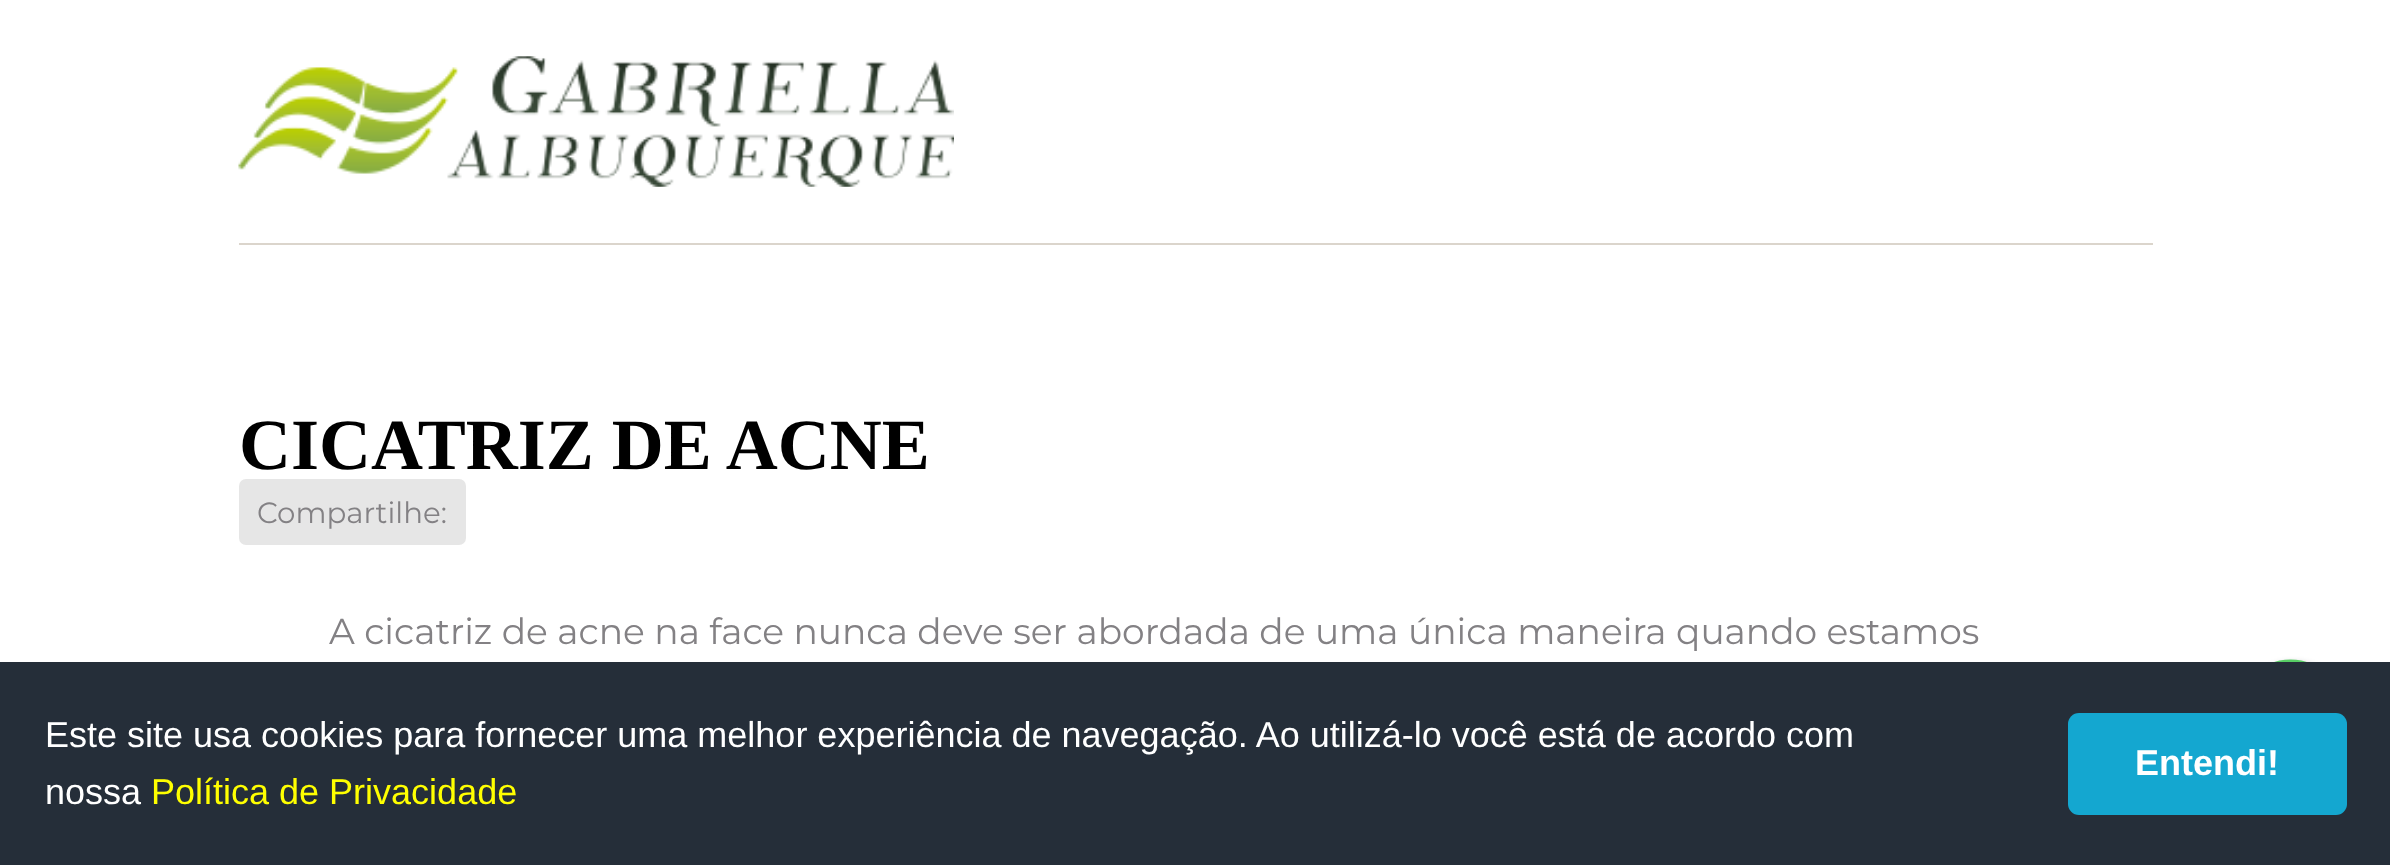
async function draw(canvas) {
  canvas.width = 2390
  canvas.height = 865
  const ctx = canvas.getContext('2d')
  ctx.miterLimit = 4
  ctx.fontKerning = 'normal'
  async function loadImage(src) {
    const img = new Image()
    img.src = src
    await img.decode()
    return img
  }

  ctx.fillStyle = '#fff'
  ctx.fillRect(0, 0, 2390, 865)
  ctx.fillStyle = '#dbd5cc'
  ctx.fillRect(239, 243, 1914, 2)
  ctx.drawImage(await loadImage('image0.png'), 238, 56, 716, 131)
  ctx.font = 'bold 72px Tinos'
  ctx.fillStyle = '#000'
  ctx.fillText('CICATRIZ DE ACNE', 239, 469)
  ctx.fillStyle = '#e6e6e6'
  ctx.beginPath()
  ctx.roundRect(239, 479, 227, 66, 7)
  ctx.fill()
  ctx.font = '29.25px Montserrat'
  ctx.fillStyle = '#838184'
  ctx.fillText('Compartilhe:', 257, 523)
  ctx.font = '36px Montserrat'
  ctx.fillText('A cicatriz de acne na face nunca deve ser abordada de uma única maneira quando estamos', 329, 644)
  ctx.fillStyle = '#00000080'
  ctx.filter = 'blur(3.5px)'
  ctx.beginPath()
  ctx.roundRect(2237, 664, 112, 117, 56)
  ctx.fill()
  ctx.filter = 'none'
  ctx.fillStyle = '#58ce65'
  ctx.beginPath()
  ctx.ellipse(2290.5, 718, 56, 58.5, 0, 0, 2 * Math.PI)
  ctx.fill()
  ctx.fillStyle = '#252e39'
  ctx.fillRect(0, 662, 2390, 203)
  ctx.font = '36px Liberation Sans'
  ctx.fillStyle = '#fff'
  ctx.fillText('Este site usa cookies para fornecer uma melhor experiência de navegação. Ao utilizá-lo você está de acordo com', 45, 747)
  ctx.fillText('nossa', 45, 804)
  ctx.fillStyle = '#ff0'
  ctx.fillText('Política de Privacidade', 151, 804)
  ctx.fillStyle = '#14a7d0'
  ctx.beginPath()
  ctx.roundRect(2068, 713, 279, 102, 11)
  ctx.fill()
  ctx.font = 'bold 36px Liberation Sans'
  ctx.fillStyle = '#fff'
  ctx.fillText('Entendi!', 2135, 775)
}

draw(document.querySelector('canvas'))
